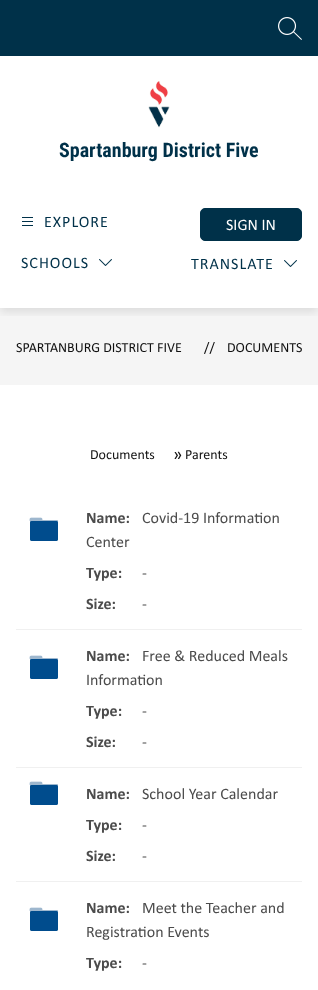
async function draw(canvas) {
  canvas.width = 318
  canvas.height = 990
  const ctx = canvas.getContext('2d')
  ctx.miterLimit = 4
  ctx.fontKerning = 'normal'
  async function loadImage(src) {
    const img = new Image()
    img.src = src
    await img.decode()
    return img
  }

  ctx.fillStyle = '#fff'
  ctx.fillRect(0, 0, 318, 990)
  ctx.fillStyle = '#f5f5f5'
  ctx.fillRect(0, 308, 318, 77)
  ctx.save()
  ctx.beginPath()
  ctx.rect(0, 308, 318, 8)
  ctx.clip()
  ctx.fillStyle = '#0000001a'
  ctx.filter = 'blur(5px)'
  ctx.beginPath()
  ctx.rect(0, 4, 318, 308)
  ctx.fill()
  ctx.filter = 'none'
  ctx.restore()
  ctx.fillStyle = '#003149'
  ctx.fillRect(0, 0, 318, 56)
  ctx.drawImage(await loadImage('image0.png'), 278, 17, 24, 23)
  ctx.drawImage(await loadImage('image1.png'), 148, 81, 22, 47)
  ctx.font = 'bold 20px Roboto Condensed'
  ctx.fillText('Spartanburg District Five', 59, 157)
  ctx.drawImage(await loadImage('image2.png'), 22, 217, 11, 9)
  ctx.letterSpacing = '1px'
  ctx.font = '16px Calibri'
  ctx.fillText('EXPLORE', 44, 227)
  ctx.fillText('SCHOOLS', 21, 268)
  ctx.drawImage(await loadImage('image3.png'), 99, 259, 13, 7)
  ctx.beginPath()
  ctx.roundRect(200.5, 208.5, 101, 32, 4.5)
  ctx.fill()
  ctx.strokeStyle = '#003149'
  ctx.stroke()
  ctx.letterSpacing = '0px'
  ctx.fillStyle = '#fff'
  ctx.fillText('SIGN IN', 226, 230)
  ctx.letterSpacing = '1px'
  ctx.fillStyle = '#003149'
  ctx.fillText('TRANSLATE', 191, 269)
  ctx.drawImage(await loadImage('image3.png'), 284, 260, 13, 7)
  ctx.letterSpacing = '0px'
  ctx.font = '14px Calibri'
  ctx.fillStyle = '#111'
  ctx.fillText('SPARTANBURG DISTRICT FIVE', 16, 352)
  ctx.fillText('//', 204, 352)
  ctx.fillText('DOCUMENTS', 227, 352)
  ctx.fillText('Documents', 90, 459)
  ctx.font = '18px Calibri'
  ctx.fillText('»', 173, 460)
  ctx.font = '14px Calibri'
  ctx.fillText('Parents', 185, 459)
  ctx.fillStyle = '#f0f0f0'
  ctx.fillRect(16, 629, 286, 1)
  ctx.drawImage(await loadImage('image4.png'), 29, 517, 29, 24)
  ctx.font = 'bold 16px Calibri'
  ctx.fillStyle = '#4c4c4c'
  ctx.fillText('Name:', 86, 523)
  ctx.font = '16px Calibri'
  ctx.fillText('Covid-19 Information', 142, 523)
  ctx.fillText('Center', 86, 547)
  ctx.font = 'bold 16px Calibri'
  ctx.fillText('Type:', 86, 578)
  ctx.font = '16px Calibri'
  ctx.fillText('-', 142, 578)
  ctx.font = 'bold 16px Calibri'
  ctx.fillText('Size:', 86, 609)
  ctx.font = '16px Calibri'
  ctx.fillText('-', 142, 609)
  ctx.fillStyle = '#f0f0f0'
  ctx.fillRect(16, 767, 286, 1)
  ctx.drawImage(await loadImage('image4.png'), 29, 655, 29, 24)
  ctx.font = 'bold 16px Calibri'
  ctx.fillStyle = '#4c4c4c'
  ctx.fillText('Name:', 86, 661)
  ctx.font = '16px Calibri'
  ctx.fillText('Free & Reduced Meals', 142, 661)
  ctx.fillText('Information', 86, 685)
  ctx.font = 'bold 16px Calibri'
  ctx.fillText('Type:', 86, 716)
  ctx.font = '16px Calibri'
  ctx.fillText('-', 142, 716)
  ctx.font = 'bold 16px Calibri'
  ctx.fillText('Size:', 86, 747)
  ctx.font = '16px Calibri'
  ctx.fillText('-', 142, 747)
  ctx.fillStyle = '#f0f0f0'
  ctx.fillRect(16, 881, 286, 1)
  ctx.drawImage(await loadImage('image4.png'), 29, 781, 29, 24)
  ctx.font = 'bold 16px Calibri'
  ctx.fillStyle = '#4c4c4c'
  ctx.fillText('Name:', 86, 799)
  ctx.font = '16px Calibri'
  ctx.fillText('School Year Calendar', 142, 799)
  ctx.font = 'bold 16px Calibri'
  ctx.fillText('Type:', 86, 830)
  ctx.font = '16px Calibri'
  ctx.fillText('-', 142, 830)
  ctx.font = 'bold 16px Calibri'
  ctx.fillText('Size:', 86, 861)
  ctx.font = '16px Calibri'
  ctx.fillText('-', 142, 861)
  ctx.drawImage(await loadImage('image4.png'), 29, 907, 29, 24)
  ctx.font = 'bold 16px Calibri'
  ctx.fillText('Name:', 86, 913)
  ctx.font = '16px Calibri'
  ctx.fillText('Meet the Teacher and', 142, 913)
  ctx.fillText('Registration Events', 86, 937)
  ctx.font = 'bold 16px Calibri'
  ctx.fillText('Type:', 86, 968)
  ctx.font = '16px Calibri'
  ctx.fillText('-', 142, 968)
}

draw(document.querySelector('canvas'))
